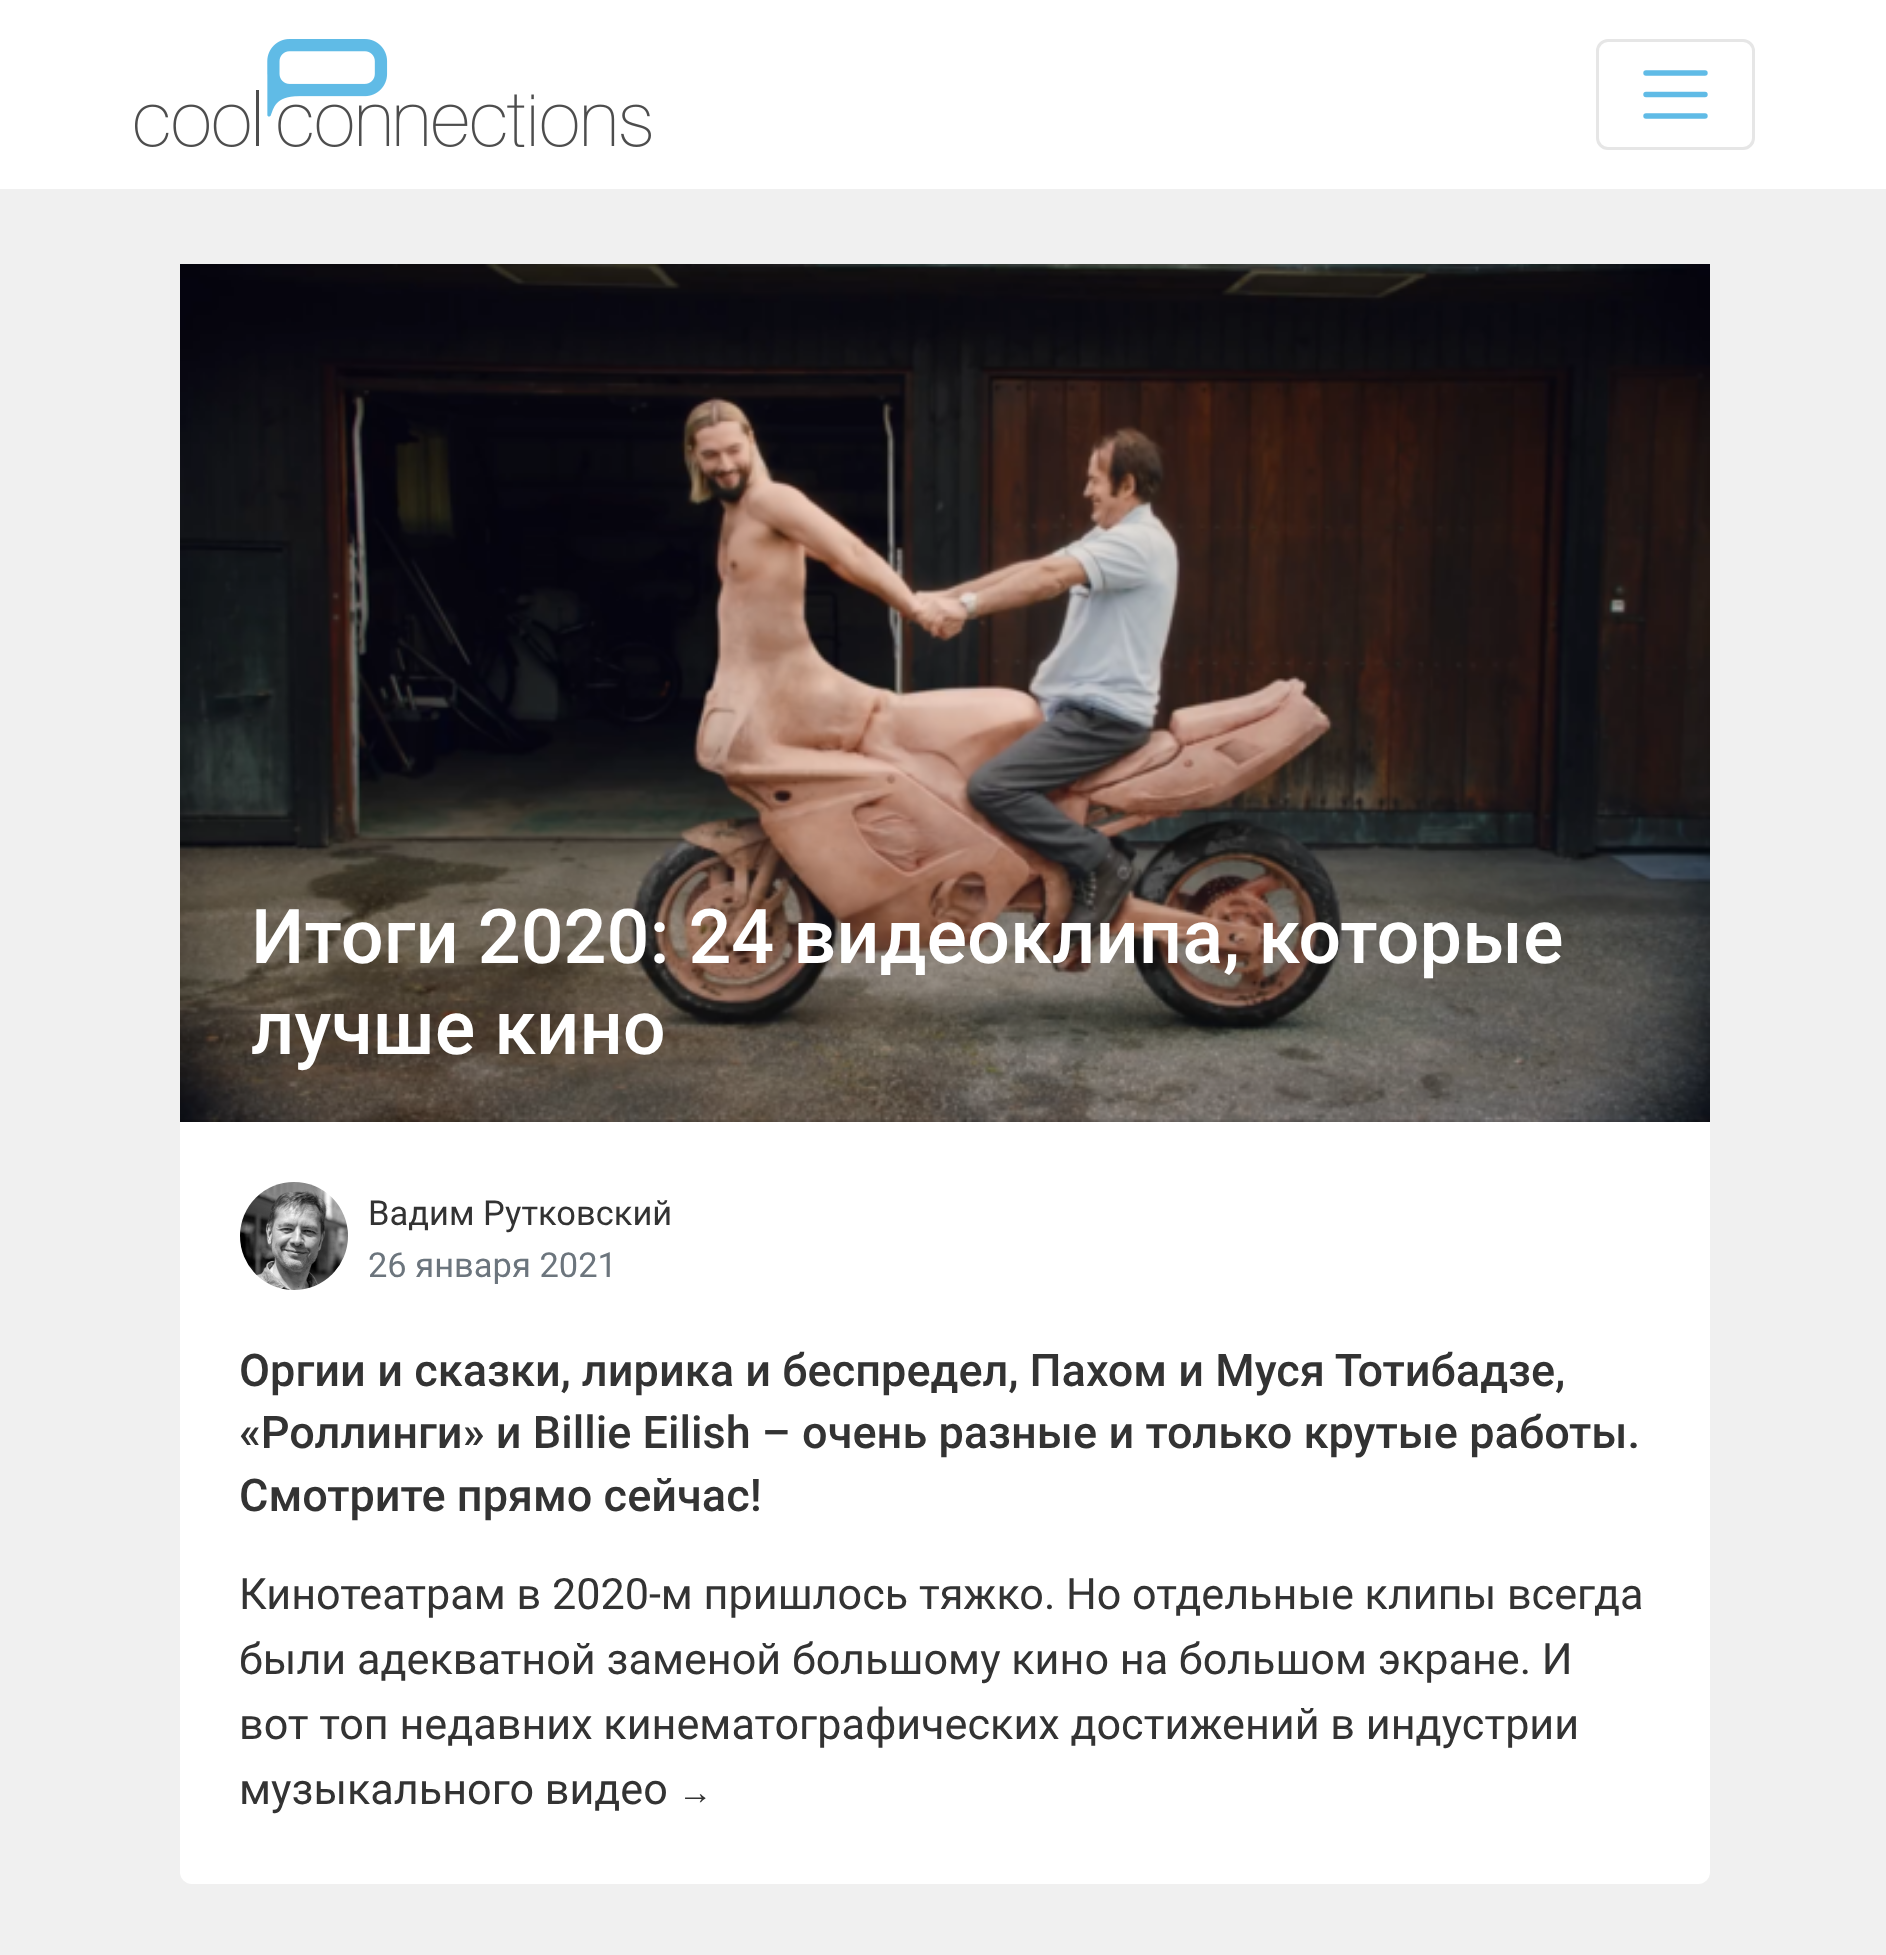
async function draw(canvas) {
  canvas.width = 1886
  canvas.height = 1955
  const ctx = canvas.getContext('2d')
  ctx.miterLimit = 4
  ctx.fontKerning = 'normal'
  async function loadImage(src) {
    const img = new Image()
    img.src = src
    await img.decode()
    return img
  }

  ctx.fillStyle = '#fff'
  ctx.fillRect(0, 0, 1886, 1955)
  ctx.fillStyle = '#f0f0f0'
  ctx.fillRect(0, 189, 1886, 1766)
  ctx.drawImage(await loadImage('image0.png'), 135, 39, 516, 108)
  ctx.beginPath()
  ctx.roundRect(1597.5, 40.5, 156, 108, 10.5)
  ctx.strokeStyle = '#e6e6e6'
  ctx.lineWidth = 3
  ctx.stroke()
  ctx.beginPath()
  ctx.moveTo(1646, 73)
  ctx.lineTo(1705, 73)
  ctx.moveTo(1646, 94.5)
  ctx.lineTo(1705, 94.5)
  ctx.moveTo(1646, 116)
  ctx.lineTo(1705, 116)
  ctx.strokeStyle = '#60bbe6'
  ctx.lineWidth = 5.4
  ctx.lineCap = 'round'
  ctx.stroke()
  ctx.fillStyle = '#fff'
  ctx.beginPath()
  ctx.roundRect(180, 264, 1530, 1620, 12)
  ctx.fill()
  ctx.drawImage(await loadImage('image1.png'), 180, 264, 1530, 858)
  ctx.font = '500 75.6px Roboto'
  ctx.fillText('Итоги 2020: 24 видеоклипа, которые', 251, 963)
  ctx.fillText('лучше кино', 251, 1054)
  ctx.drawImage(await loadImage('image2.png'), 240, 1182, 108, 108)
  ctx.font = '34.5px Roboto'
  ctx.fillStyle = '#333'
  ctx.fillText('Вадим Рутковский', 368, 1225)
  ctx.fillStyle = '#6c757d'
  ctx.fillText('26 января 2021', 368, 1277)
  ctx.font = '500 45px Roboto'
  ctx.fillStyle = '#333'
  ctx.fillText('Оргии и сказки, лирика и беспредел, Пахом и Муся Тотибадзе,', 239, 1386)
  ctx.fillText('«Роллинги» и Billie Eilish – очень разные и только крутые работы.', 239, 1448)
  ctx.fillText('Смотрите прямо сейчас!', 239, 1511)
  ctx.font = '43.2px Roboto'
  ctx.fillText('Кинотеатрам в 2020-м пришлось тяжко. Но отдельные клипы всегда', 239, 1609)
  ctx.fillText('были адекватной заменой большому кино на большом экране. И', 239, 1674)
  ctx.fillText('вот топ недавних кинематографических достижений в индустрии', 239, 1739)
  ctx.fillText('музыкального видео', 239, 1804)
  ctx.font = '34.5px Liberation Sans'
  ctx.fillText('→', 678, 1804)
}

draw(document.querySelector('canvas'))
